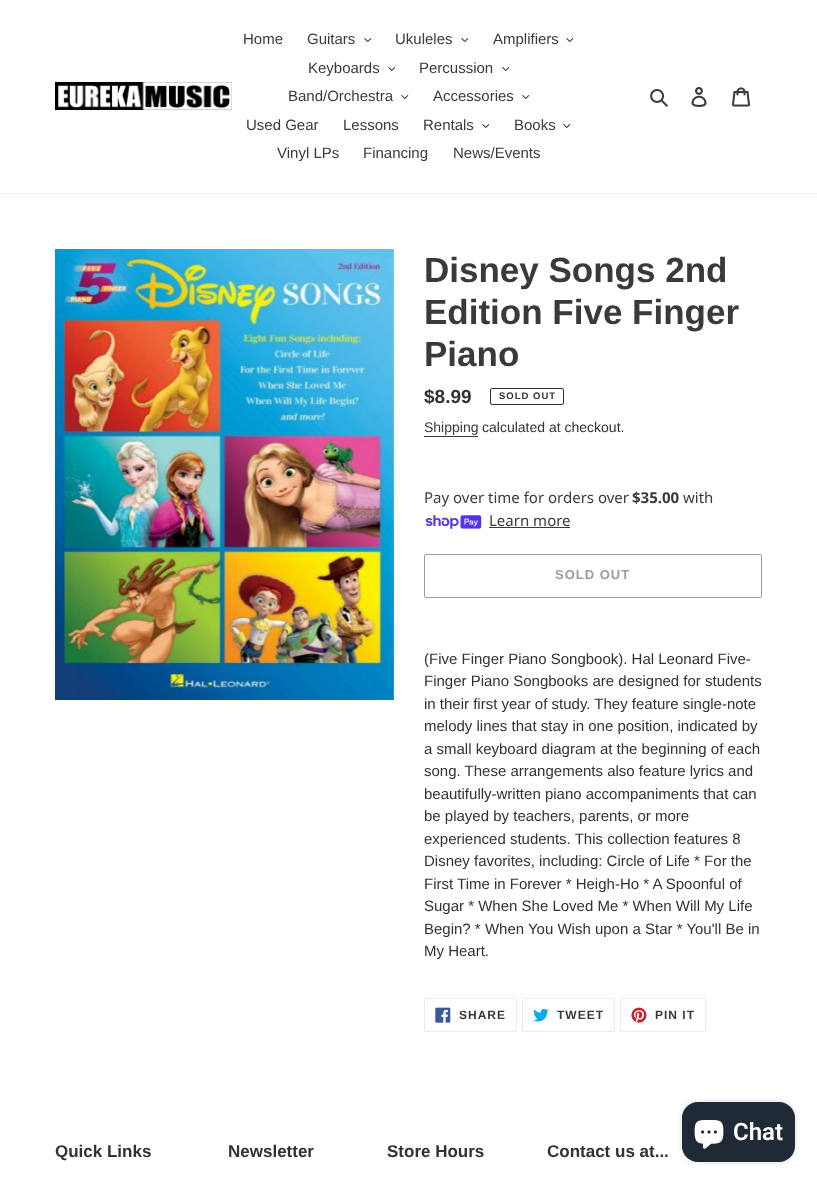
async function draw(canvas) {
  canvas.width = 817
  canvas.height = 1183
  const ctx = canvas.getContext('2d')
  ctx.miterLimit = 4
  ctx.fontKerning = 'normal'
  async function loadImage(src) {
    const img = new Image()
    img.src = src
    await img.decode()
    return img
  }

  ctx.fillStyle = '#fff'
  ctx.fillRect(0, 0, 817, 1183)
  ctx.fillStyle = '#ebebeb'
  ctx.fillRect(0, 193, 817, 1)
  ctx.drawImage(await loadImage('image0.png'), 55, 82, 177, 28)
  ctx.font = '15px Liberation Sans'
  ctx.fillStyle = '#3a3a3a'
  ctx.fillText('Home', 243, 44)
  ctx.fillText('Guitars', 307, 44)
  ctx.drawImage(await loadImage('image1.png'), 364, 38, 7, 4)
  ctx.fillText('Ukuleles', 395, 44)
  ctx.drawImage(await loadImage('image1.png'), 461, 38, 7, 4)
  ctx.fillText('Amplifiers', 493, 44)
  ctx.drawImage(await loadImage('image2.png'), 566, 38, 8, 4)
  ctx.fillText('Keyboards', 308, 73)
  ctx.drawImage(await loadImage('image1.png'), 388, 67, 7, 4)
  ctx.fillText('Percussion', 419, 73)
  ctx.drawImage(await loadImage('image1.png'), 502, 67, 7, 4)
  ctx.fillText('Band/Orchestra', 288, 101)
  ctx.drawImage(await loadImage('image2.png'), 401, 95, 8, 4)
  ctx.fillText('Accessories', 433, 101)
  ctx.drawImage(await loadImage('image1.png'), 522, 95, 7, 4)
  ctx.fillText('Used Gear', 246, 130)
  ctx.fillText('Lessons', 343, 130)
  ctx.fillText('Rentals', 423, 130)
  ctx.drawImage(await loadImage('image1.png'), 482, 124, 7, 4)
  ctx.fillText('Books', 514, 130)
  ctx.drawImage(await loadImage('image2.png'), 563, 124, 8, 4)
  ctx.fillText('Vinyl LPs', 277, 158)
  ctx.fillText('Financing', 363, 158)
  ctx.fillText('News/Events', 453, 158)
  ctx.drawImage(await loadImage('image3.png'), 650, 89, 18, 18)
  ctx.drawImage(await loadImage('image4.png'), 691, 87, 16, 20)
  ctx.drawImage(await loadImage('image5.png'), 732, 87, 18, 20)
  ctx.drawImage(await loadImage('image6.png'), 55, 249, 339, 451)
  ctx.font = 'bold 35px Liberation Sans'
  ctx.fillText('Disney Songs 2nd', 424, 282)
  ctx.fillText('Edition Five Finger', 424, 324)
  ctx.fillText('Piano', 424, 366)
  ctx.font = 'bold 19px Liberation Sans'
  ctx.fillStyle = '#333232'
  ctx.fillText('$8.99', 424, 403)
  ctx.beginPath()
  ctx.roundRect(490.5, 388.5, 73, 16, 1.5)
  ctx.strokeStyle = '#333232'
  ctx.stroke()
  ctx.letterSpacing = '1px'
  ctx.font = 'bold 9.5px Liberation Sans'
  ctx.fillText('SOLD OUT', 499, 399)
  ctx.letterSpacing = '0px'
  ctx.font = '14px Liberation Sans'
  ctx.fillStyle = '#3a3a3a'
  ctx.fillText('Shipping', 424, 432)
  ctx.fillRect(424, 436, 54, 1)
  ctx.fillStyle = '#333232'
  ctx.fillText('calculated at checkout.', 482, 432)
  ctx.font = '15px Noto Sans'
  ctx.fillStyle = '#3a3a3a'
  ctx.fillText('Pay over time for orders over', 424, 503)
  ctx.font = 'bold 15px Noto Sans'
  ctx.fillText('$35.00', 632, 503)
  ctx.font = '15px Noto Sans'
  ctx.fillText('with', 683, 503)
  ctx.drawImage(await loadImage('image7.png'), 425, 515, 57, 14)
  ctx.fillText('Learn more', 489, 526)
  ctx.fillRect(489, 527, 81, 1)
  ctx.beginPath()
  ctx.roundRect(424.5, 554.5, 337, 43, 1.5)
  ctx.strokeStyle = '#9d9d9d'
  ctx.stroke()
  ctx.letterSpacing = '1px'
  ctx.font = 'bold 13px Liberation Sans'
  ctx.fillStyle = '#9d9d9d'
  ctx.fillText('SOLD OUT', 555, 579)
  ctx.letterSpacing = '0px'
  ctx.font = '15px Liberation Sans'
  ctx.fillStyle = '#333232'
  ctx.fillText('(Five Finger Piano Songbook). Hal Leonard Five-', 424, 664)
  ctx.fillText('Finger Piano Songbooks are designed for students', 424, 686)
  ctx.fillText('in their first year of study. They feature single-note', 424, 709)
  ctx.fillText('melody lines that stay in one position, indicated by', 424, 731)
  ctx.fillText('a small keyboard diagram at the beginning of each', 424, 754)
  ctx.fillText('song. These arrangements also feature lyrics and', 424, 776)
  ctx.fillText('beautifully-written piano accompaniments that can', 424, 799)
  ctx.fillText('be played by teachers, parents, or more', 424, 821)
  ctx.fillText('experienced students. This collection features 8', 424, 844)
  ctx.fillText('Disney favorites, including: Circle of Life * For the', 424, 866)
  ctx.fillText('First Time in Forever * Heigh-Ho * A Spoonful of', 424, 889)
  ctx.fillText('Sugar * When She Loved Me * When Will My Life', 424, 911)
  ctx.fillText('Begin? * When You Wish upon a Star * You\'ll Be in', 424, 934)
  ctx.fillText('My Heart.', 424, 956)
  ctx.beginPath()
  ctx.roundRect(424.5, 998.5, 92, 33, 1.5)
  ctx.strokeStyle = '#ebebeb'
  ctx.stroke()
  ctx.drawImage(await loadImage('image8.png'), 435, 1007, 16, 16)
  ctx.letterSpacing = '1px'
  ctx.font = 'bold 12px Liberation Sans'
  ctx.fillStyle = '#3a3a3a'
  ctx.fillText('SHARE', 459, 1019)
  ctx.beginPath()
  ctx.roundRect(522.5, 998.5, 92, 33, 1.5)
  ctx.stroke()
  ctx.drawImage(await loadImage('image9.png'), 533, 1008, 16, 14)
  ctx.fillText('TWEET', 557, 1019)
  ctx.beginPath()
  ctx.roundRect(620.5, 998.5, 85, 33, 1.5)
  ctx.stroke()
  ctx.drawImage(await loadImage('image10.png'), 631, 1007, 16, 16)
  ctx.fillText('PIN IT', 655, 1019)
  ctx.letterSpacing = '0px'
  ctx.font = 'bold 17px Liberation Sans'
  ctx.fillStyle = '#333232'
  ctx.fillText('Quick Links', 55, 1157)
  ctx.fillText('Newsletter', 228, 1157)
  ctx.fillText('Store Hours', 387, 1157)
  ctx.fillText('Contact us at...', 547, 1157)
  ctx.fillStyle = '#00000026'
  ctx.filter = 'blur(2.5px)'
  ctx.beginPath()
  ctx.roundRect(682, 1102, 113, 60, 16)
  ctx.fill()
  ctx.filter = 'none'
  ctx.fillStyle = '#202a36'
  ctx.beginPath()
  ctx.roundRect(682, 1102, 113, 60, 16)
  ctx.fill()
  ctx.drawImage(await loadImage('image11.png'), 694, 1120, 30, 29)
  ctx.font = '600 24px Roboto'
  ctx.fillStyle = '#fff'
  ctx.fillText('Chat', 733, 1140)
}

draw(document.querySelector('canvas'))
